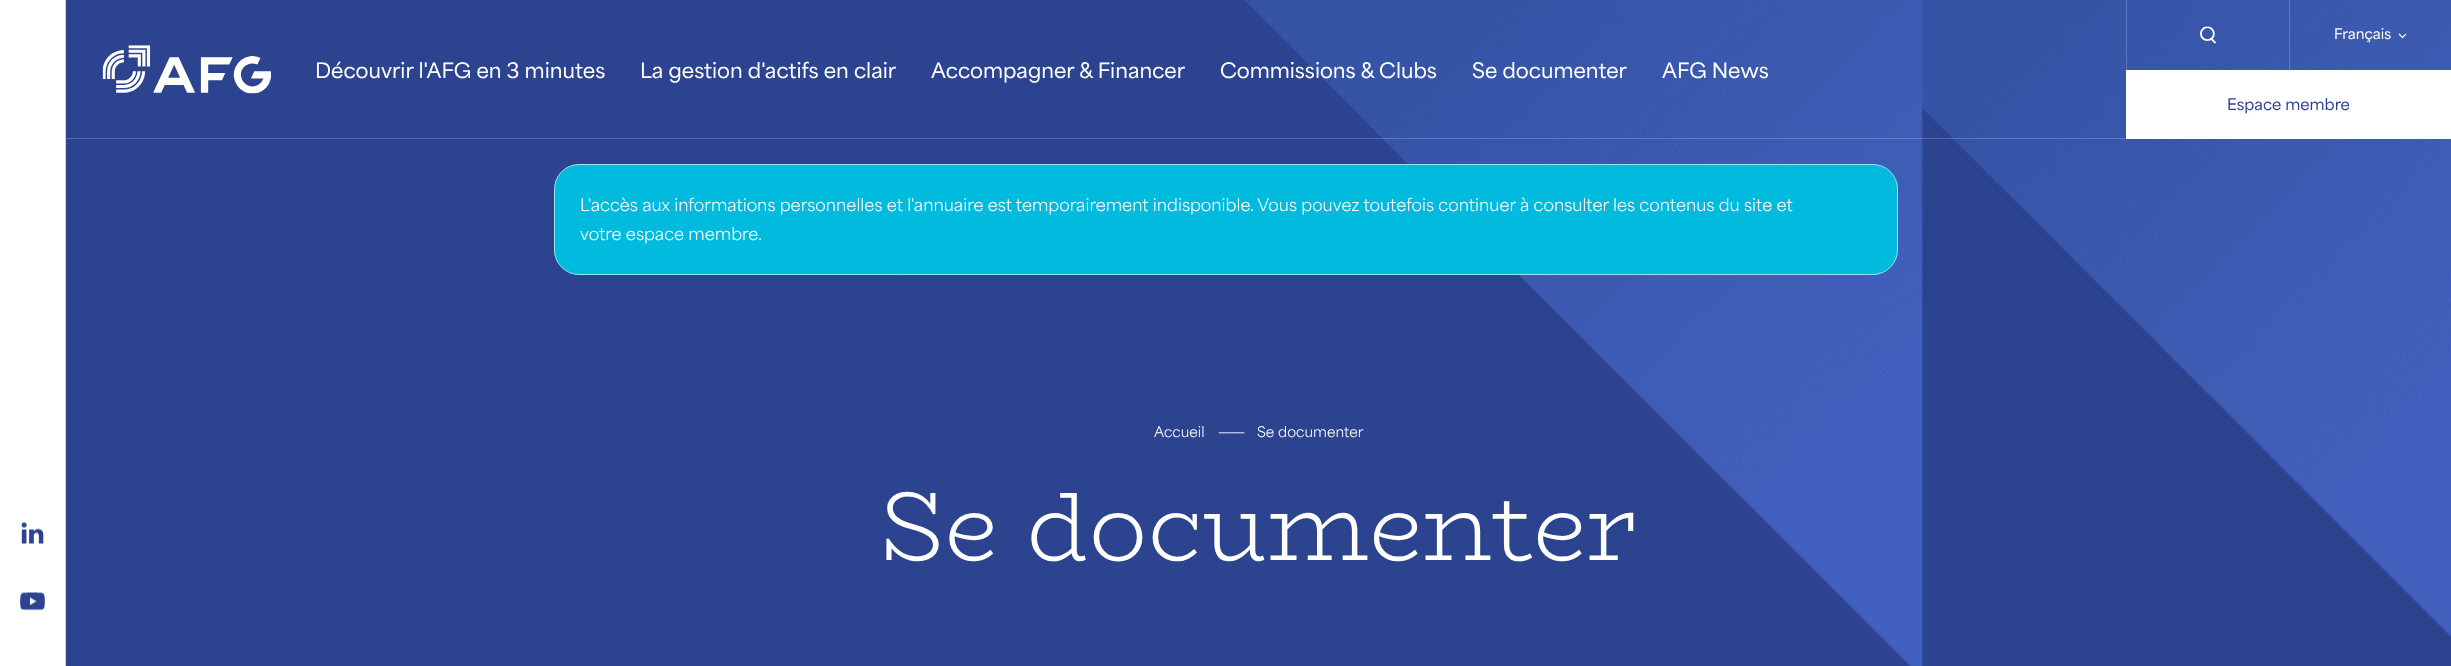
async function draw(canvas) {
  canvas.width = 2451
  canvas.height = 666
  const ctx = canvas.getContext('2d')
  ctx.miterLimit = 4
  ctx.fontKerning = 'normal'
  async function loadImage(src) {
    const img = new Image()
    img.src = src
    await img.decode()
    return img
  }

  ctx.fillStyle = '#fff'
  ctx.fillRect(0, 0, 2451, 666)
  ctx.fillStyle = '#2c4390'
  ctx.fillRect(66, 0, 2385, 666)
  ctx.drawImage(await loadImage('image4.png'), 1244, 0, 1207, 666)
  ctx.fillStyle = '#ffffff33'
  ctx.fillRect(66, 138, 2060, 1)
  ctx.drawImage(await loadImage('image0.png'), 102, 45, 169, 49)
  ctx.font = '600 20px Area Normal'
  ctx.fillStyle = '#fff'
  ctx.fillText('Découvrir l\'AFG en 3 minutes', 315, 78)
  ctx.fillText('La gestion d\'actifs en clair', 640, 78)
  ctx.fillText('Accompagner & Financer', 931, 78)
  ctx.fillText('Commissions & Clubs', 1220, 78)
  ctx.fillText('Se documenter', 1472, 78)
  ctx.fillText('AFG News', 1662, 78)
  ctx.fillStyle = '#ffffff33'
  ctx.fillRect(2126, 0, 1, 70)
  ctx.drawImage(await loadImage('image1.png'), 2200, 26, 16, 18)
  ctx.fillRect(2289, 0, 1, 70)
  ctx.font = '600 13.75px Area Normal'
  ctx.fillStyle = '#fff'
  ctx.fillText('Français', 2334, 39)
  ctx.beginPath()
  ctx.moveTo(2399, 34)
  ctx.lineTo(2402.5, 37.5)
  ctx.lineTo(2406, 34)
  ctx.strokeStyle = '#fff'
  ctx.lineWidth = 1.2
  ctx.stroke()
  ctx.fillRect(2126, 70, 325, 69)
  ctx.font = '600 15px Area Normal'
  ctx.fillStyle = '#2c4390'
  ctx.fillText('Espace membre', 2227, 110)
  ctx.fillStyle = '#0bd'
  ctx.beginPath()
  ctx.roundRect(554.5, 164.5, 1343, 110, 24.5)
  ctx.fill()
  ctx.strokeStyle = '#99e4f1'
  ctx.lineWidth = 1
  ctx.stroke()
  ctx.font = '16.25px Area Normal'
  ctx.fillStyle = '#fff'
  ctx.fillText('L\'accès aux informations personnelles et l\'annuaire est temporairement indisponible. Vous pouvez toutefois continuer à consulter les contenus du site et', 580, 211)
  ctx.fillText('votre espace membre.', 580, 240)
  ctx.fillStyle = '#c5d6ea'
  ctx.fillRect(65, 0, 1, 666)
  ctx.drawImage(await loadImage('image2.png'), 21, 522, 23, 22)
  ctx.drawImage(await loadImage('image3.png'), 20, 592, 25, 19)
  ctx.font = '13.75px Area Normal'
  ctx.fillStyle = '#fff'
  ctx.fillText('Accueil', 1154, 437)
  ctx.letterSpacing = '-1.75px'
  ctx.fillText('-------', 1218, 437)
  ctx.letterSpacing = '0px'
  ctx.fillText('Se documenter', 1257, 437)
  ctx.font = '300 97.5px BioRhyme'
  ctx.fillText('Se documenter', 879, 560)
}

draw(document.querySelector('canvas'))
